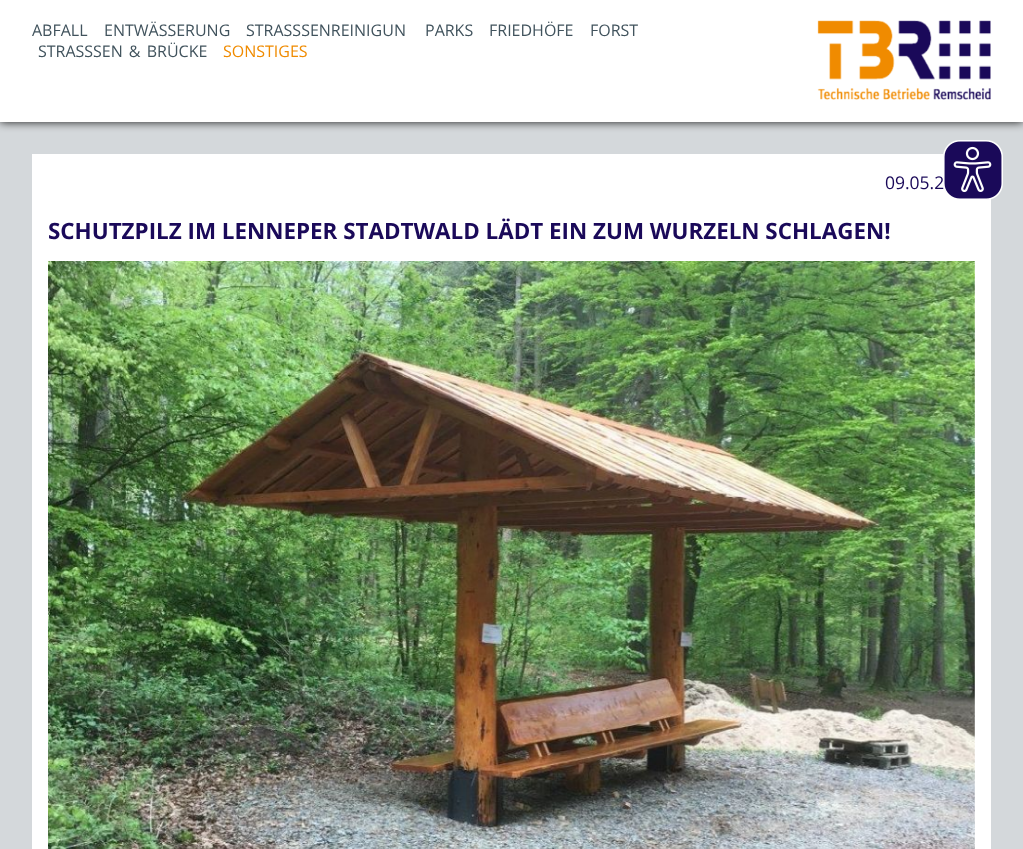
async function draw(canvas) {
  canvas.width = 1023
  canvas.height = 849
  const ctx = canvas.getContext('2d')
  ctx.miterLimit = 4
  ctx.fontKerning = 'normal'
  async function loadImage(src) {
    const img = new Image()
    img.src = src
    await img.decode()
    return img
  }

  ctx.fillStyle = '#d4d8db'
  ctx.fillRect(0, 0, 1023, 849)
  ctx.fillStyle = '#000000e6'
  ctx.filter = 'blur(5px)'
  ctx.beginPath()
  ctx.rect(0, 0, 1023, 122)
  ctx.fill()
  ctx.filter = 'none'
  ctx.fillStyle = '#fff'
  ctx.fillRect(0, 0, 1023, 122)
  ctx.font = '16px Open Sans'
  ctx.fillStyle = '#41535d'
  ctx.fillText('ABFALL', 32, 36)
  ctx.fillText('ENTWÄSSERUNG', 104, 36)
  ctx.fillText('STRASSSENREINIGUN', 246, 36)
  ctx.fillText('PARKS', 425, 36)
  ctx.fillText('FRIEDHÖFE', 489, 36)
  ctx.fillText('FORST', 590, 36)
  ctx.fillText('STRASS', 38, 57)
  ctx.wordSpacing = '2px'
  ctx.fillText('SEN & BRÜCKE', 93, 57)
  ctx.wordSpacing = '0px'
  ctx.fillStyle = '#f08b00'
  ctx.fillText('SONSTIGES', 223, 57)
  ctx.drawImage(await loadImage('image0.png'), 817, 20, 174, 80)
  ctx.fillStyle = '#fff'
  ctx.fillRect(32, 154, 959, 695)
  ctx.font = '17.5px Open Sans'
  ctx.fillStyle = '#1a0959'
  ctx.fillText('09.05.2', 885, 189)
  ctx.font = 'bold 22.4px Open Sans'
  ctx.fillText('SCHUTZPILZ IM LENNEPER STADTWALD LÄDT EIN ZUM WURZELN SCHLAGEN!', 48, 239)
  ctx.drawImage(await loadImage('image1.png'), 48, 261, 927, 588)
  ctx.drawImage(await loadImage('image2.png'), 943, 140, 60, 60)
}

draw(document.querySelector('canvas'))
